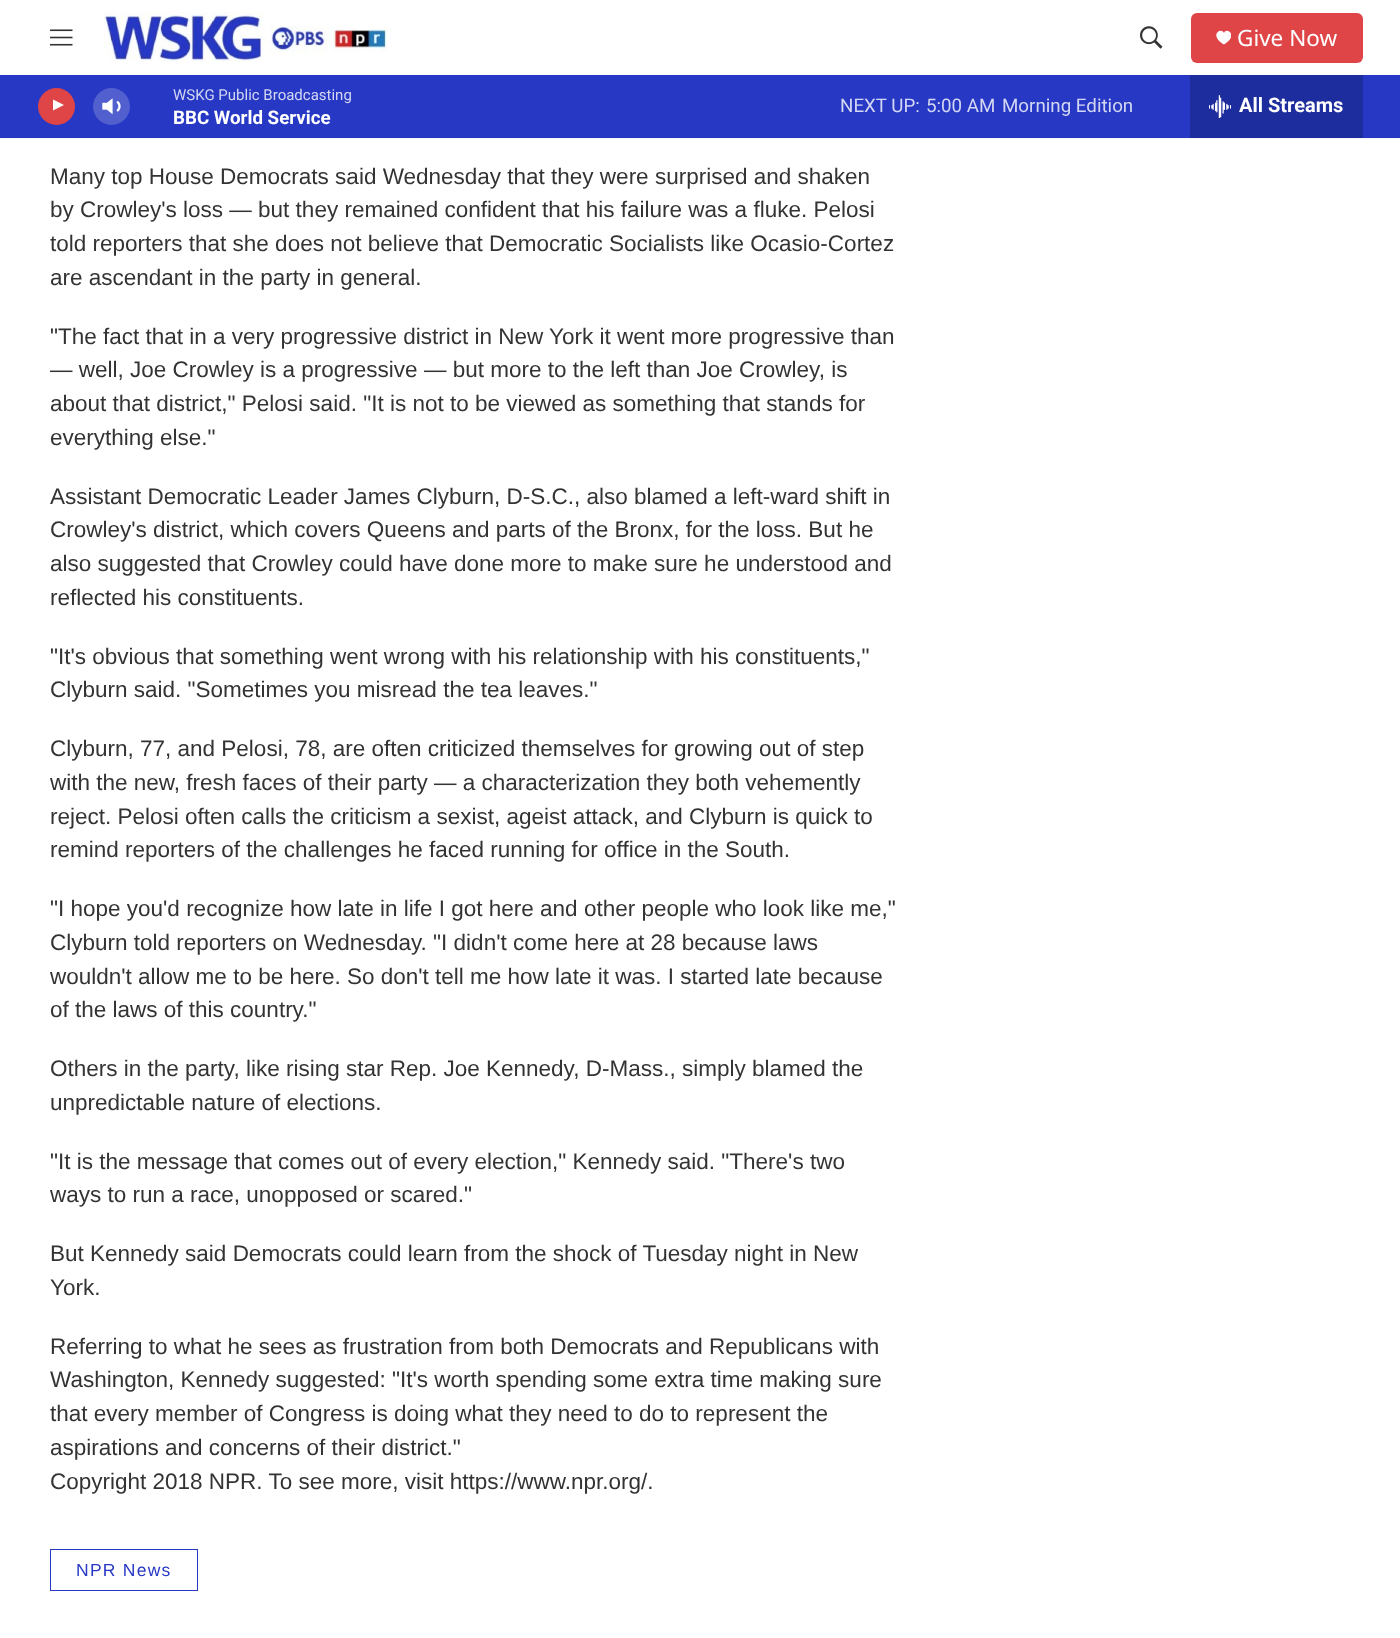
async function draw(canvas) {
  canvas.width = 1400
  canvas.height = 1638
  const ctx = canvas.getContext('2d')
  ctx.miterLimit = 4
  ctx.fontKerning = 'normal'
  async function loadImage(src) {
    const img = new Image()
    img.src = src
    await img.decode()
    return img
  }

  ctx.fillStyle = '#fff'
  ctx.fillRect(0, 0, 1400, 1638)
  ctx.fillStyle = '#f5f5f5'
  ctx.fillRect(0, 138, 1400, 1)
  ctx.drawImage(await loadImage('image0.png'), 50, 29, 23, 17)
  ctx.drawImage(await loadImage('image1.png'), 104, 12, 283, 50)
  ctx.drawImage(await loadImage('image2.png'), 1140, 26, 23, 23)
  ctx.fillStyle = '#df4547'
  ctx.beginPath()
  ctx.roundRect(1191, 13, 172, 50, 6)
  ctx.fill()
  ctx.save()
  ctx.beginPath()
  ctx.rect(1216, 30, 15, 15)
  ctx.clip()
  ctx.fillStyle = '#fff'
  ctx.beginPath()
  ctx.moveTo(1224, 33)
  ctx.bezierCurveTo(1221.5, 26.5, 1208, 35, 1224, 44.5)
  ctx.bezierCurveTo(1239.5, 35, 1226, 26.5, 1224, 33)
  ctx.closePath()
  ctx.fill()
  ctx.restore()
  ctx.font = '22.5px Noto Sans'
  ctx.fillStyle = '#fff'
  ctx.fillText('Give Now', 1237, 46)
  ctx.fillStyle = '#2638c4'
  ctx.fillRect(0, 75, 1400, 63)
  ctx.fillStyle = '#df4547'
  ctx.beginPath()
  ctx.arc(56.5, 106.5, 18.5, 0, 2 * Math.PI)
  ctx.fill()
  ctx.save()
  ctx.beginPath()
  ctx.rect(53, 98, 14, 18)
  ctx.clip()
  ctx.fillStyle = '#fff'
  ctx.beginPath()
  ctx.moveTo(52, 99)
  ctx.lineTo(64, 105)
  ctx.lineTo(52, 111)
  ctx.closePath()
  ctx.fill()
  ctx.restore()
  ctx.drawImage(await loadImage('image3.png'), 102, 98, 19, 17)
  ctx.fillStyle = '#ffffff33'
  ctx.beginPath()
  ctx.arc(111.5, 106.5, 18.5, 0, 2 * Math.PI)
  ctx.fill()
  ctx.font = '15px Roboto'
  ctx.fillStyle = '#d4d7f3'
  ctx.fillText('WSKG Public Broadcasting', 173, 100)
  ctx.font = 'bold 18.75px Roboto'
  ctx.fillStyle = '#fff'
  ctx.fillText('BBC World Service', 173, 124)
  ctx.font = '18.75px Roboto'
  ctx.fillStyle = '#d4d7f3'
  ctx.fillText('NEXT UP:', 840, 112)
  ctx.fillText('5:00 AM', 926, 112)
  ctx.fillText('Morning Edition', 1002, 112)
  ctx.fillStyle = '#1e2d9d'
  ctx.fillRect(1190, 75, 173, 63)
  ctx.drawImage(await loadImage('image4.png'), 1209, 95, 22, 23)
  ctx.font = 'bold 20px Roboto'
  ctx.fillStyle = '#fff'
  ctx.fillText('All Streams', 1239, 112)
  ctx.font = '22.5px Liberation Sans'
  ctx.fillStyle = '#333'
  ctx.fillText('Many top House Democrats said Wednesday that they were surprised and shaken', 50, 184)
  ctx.fillText('by Crowley\'s loss — but they remained confident that his failure was a fluke. Pelosi', 50, 217)
  ctx.fillText('told reporters that she does not believe that Democratic Socialists like Ocasio-Cortez', 50, 251)
  ctx.fillText('are ascendant in the party in general.', 50, 285)
  ctx.fillText('"The fact that in a very progressive district in New York it went more progressive than', 50, 344)
  ctx.fillText('— well, Joe Crowley is a progressive — but more to the left than Joe Crowley, is', 50, 377)
  ctx.fillText('about that district," Pelosi said. "It is not to be viewed as something that stands for', 50, 411)
  ctx.fillText('everything else."', 50, 445)
  ctx.fillText('Assistant Democratic Leader James Clyburn, D-S.C., also blamed a left-ward shift in', 50, 504)
  ctx.fillText('Crowley\'s district, which covers Queens and parts of the Bronx, for the loss. But he', 50, 537)
  ctx.fillText('also suggested that Crowley could have done more to make sure he understood and', 50, 571)
  ctx.fillText('reflected his constituents.', 50, 605)
  ctx.fillText('"It\'s obvious that something went wrong with his relationship with his constituents,"', 50, 664)
  ctx.fillText('Clyburn said. "Sometimes you misread the tea leaves."', 50, 697)
  ctx.fillText('Clyburn, 77, and Pelosi, 78, are often criticized themselves for growing out of step', 50, 756)
  ctx.fillText('with the new, fresh faces of their party — a characterization they both vehemently', 50, 790)
  ctx.fillText('reject. Pelosi often calls the criticism a sexist, ageist attack, and Clyburn is quick to', 50, 824)
  ctx.fillText('remind reporters of the challenges he faced running for office in the South.', 50, 857)
  ctx.fillText('"I hope you\'d recognize how late in life I got here and other people who look like me,"', 50, 916)
  ctx.fillText('Clyburn told reporters on Wednesday. "I didn\'t come here at 28 because laws', 50, 950)
  ctx.fillText('wouldn\'t allow me to be here. So don\'t tell me how late it was. I started late because', 50, 984)
  ctx.fillText('of the laws of this country."', 50, 1017)
  ctx.fillText('Others in the party, like rising star Rep. Joe Kennedy, D-Mass., simply blamed the', 50, 1076)
  ctx.fillText('unpredictable nature of elections.', 50, 1110)
  ctx.fillText('"It is the message that comes out of every election," Kennedy said. "There\'s two', 50, 1169)
  ctx.fillText('ways to run a race, unopposed or scared."', 50, 1202)
  ctx.fillText('But Kennedy said Democrats could learn from the shock of Tuesday night in New', 50, 1261)
  ctx.fillText('York.', 50, 1295)
  ctx.fillText('Referring to what he sees as frustration from both Democrats and Republicans with', 50, 1354)
  ctx.fillText('Washington, Kennedy suggested: "It\'s worth spending some extra time making sure', 50, 1387)
  ctx.fillText('that every member of Congress is doing what they need to do to represent the', 50, 1421)
  ctx.fillText('aspirations and concerns of their district."', 50, 1455)
  ctx.fillText('Copyright 2018 NPR. To see more, visit https://www.npr.org/.', 50, 1489)
  ctx.strokeStyle = '#2638c4'
  ctx.strokeRect(50.5, 1549.5, 147, 41)
  ctx.letterSpacing = '1.25px'
  ctx.font = '17.5px Liberation Sans'
  ctx.fillStyle = '#2638c4'
  ctx.fillText('NPR News', 76, 1576)
}

draw(document.querySelector('canvas'))
